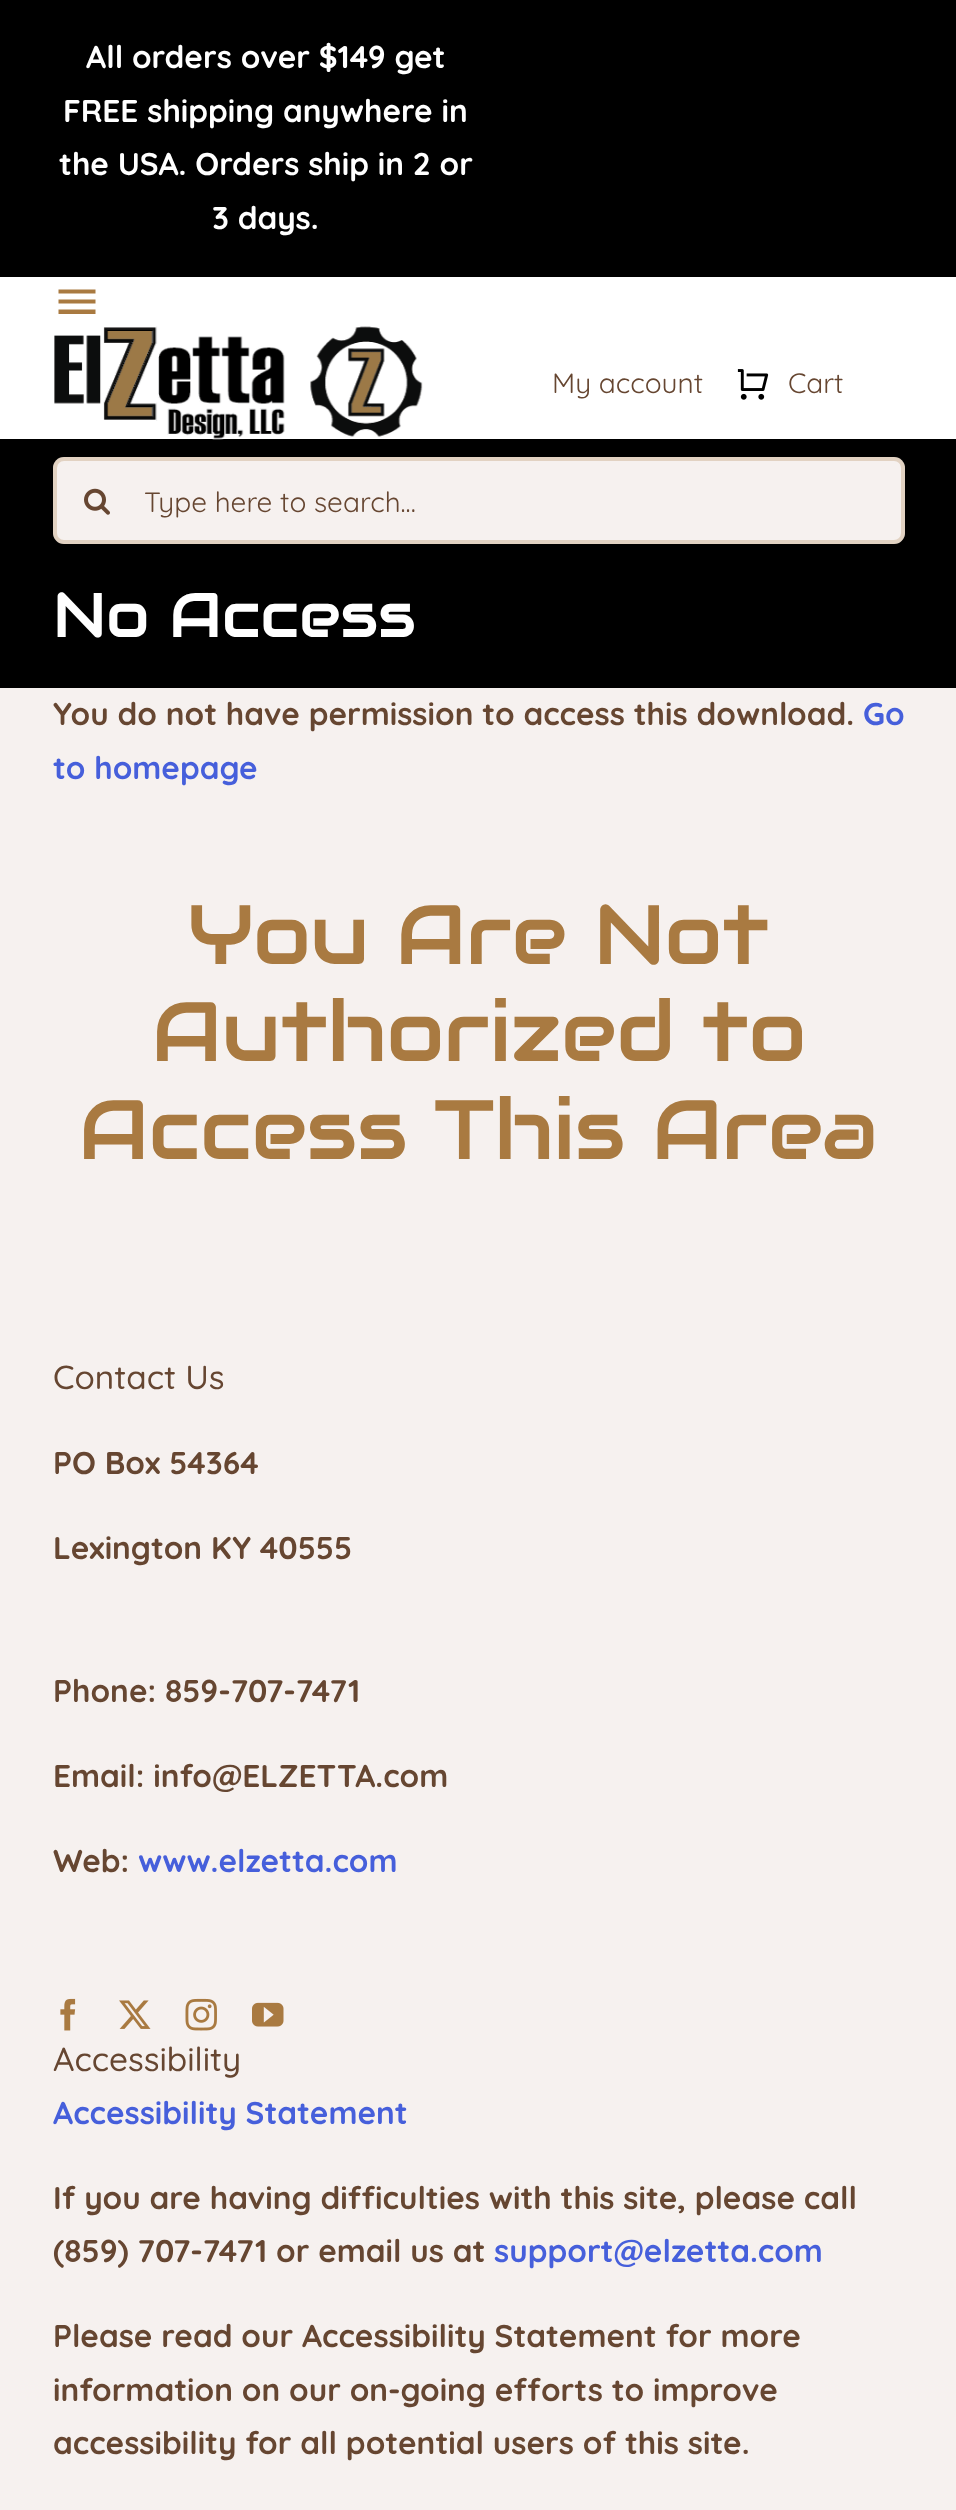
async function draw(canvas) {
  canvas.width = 956
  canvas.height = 2510
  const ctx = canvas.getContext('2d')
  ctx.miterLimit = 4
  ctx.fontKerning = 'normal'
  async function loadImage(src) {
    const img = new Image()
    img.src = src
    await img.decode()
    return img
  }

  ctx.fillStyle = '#f6f1ef'
  ctx.fillRect(0, 0, 956, 2510)
  ctx.fillStyle = '#000'
  ctx.fillRect(0, 0, 956, 277)
  ctx.font = 'bold 31.5px Quicksand'
  ctx.fillStyle = '#fff'
  ctx.fillText('All orders over $149 get', 86, 68)
  ctx.fillText('FREE shipping anywhere in', 63, 122)
  ctx.fillText('the USA. Orders ship in 2 or', 59, 175)
  ctx.fillText('3 days.', 212, 229)
  ctx.fillRect(0, 277, 956, 162)
  ctx.fillStyle = '#a97a41'
  ctx.beginPath()
  ctx.moveTo(58.5, 289.5)
  ctx.lineTo(95.5, 289.5)
  ctx.lineTo(95.5, 293.5)
  ctx.lineTo(58.5, 293.5)
  ctx.closePath()
  ctx.moveTo(58.5, 303.5)
  ctx.lineTo(58.5, 299.5)
  ctx.lineTo(95.5, 299.5)
  ctx.lineTo(95.5, 303.5)
  ctx.closePath()
  ctx.moveTo(58.5, 314)
  ctx.lineTo(58.5, 309.5)
  ctx.lineTo(95.5, 309.5)
  ctx.lineTo(95.5, 314)
  ctx.closePath()
  ctx.fill()
  ctx.fillStyle = '#000'
  ctx.fillRect(0, 439, 956, 249)
  ctx.drawImage(await loadImage('image0.png'), 54, 326, 369, 114)
  ctx.font = '28px Quicksand'
  ctx.fillStyle = '#664631'
  ctx.fillText('My account', 552, 393)
  ctx.drawImage(await loadImage('image1.png'), 737, 369, 32, 31)
  ctx.fillText('Cart', 788, 393)
  ctx.fillStyle = '#f6f1ef'
  ctx.beginPath()
  ctx.roundRect(53, 457, 852, 87, 11)
  ctx.fill()
  ctx.beginPath()
  ctx.roundRect(55, 459, 848, 83, 9)
  ctx.strokeStyle = '#a97a4242'
  ctx.lineWidth = 4
  ctx.stroke()
  ctx.drawImage(await loadImage('image2.png'), 84, 488, 26, 27)
  ctx.fillStyle = '#664631'
  ctx.fillText('Type here to search...', 144, 512)
  ctx.font = '63px Audiowide'
  ctx.fillStyle = '#fff'
  ctx.fillText('No Access', 53, 637)
  ctx.font = 'bold 31.5px Quicksand'
  ctx.fillStyle = '#664631'
  ctx.fillText('You do not have permission to access this download.', 53, 725)
  ctx.fillStyle = '#465fdb'
  ctx.fillText('Go', 863, 725)
  ctx.fillText('to homepage', 53, 779)
  ctx.font = '84px Audiowide'
  ctx.fillStyle = '#a97a41'
  ctx.fillText('You Are Not', 188, 964)
  ctx.fillText('Authorized to', 152, 1061)
  ctx.fillText('Access This Area', 79, 1159)
  ctx.font = '500 33.25px Quicksand'
  ctx.fillStyle = '#664631'
  ctx.fillText('Contact Us', 53, 1389)
  ctx.font = 'bold 31.5px Quicksand'
  ctx.fillText('PO Box 54364', 53, 1474)
  ctx.fillText('Lexington KY 40555', 53, 1559)
  ctx.fillText('Phone: 859-707-7471', 53, 1702)
  ctx.fillText('Email: info@ELZETTA.com', 53, 1787)
  ctx.fillText('Web:', 53, 1872)
  ctx.fillStyle = '#465fdb'
  ctx.fillText('www.elzetta.com', 138, 1872)
  ctx.drawImage(await loadImage('image3.png'), 60, 1998, 16, 33)
  ctx.drawImage(await loadImage('image4.png'), 119, 2000, 32, 29)
  ctx.drawImage(await loadImage('image5.png'), 185, 1998, 32, 33)
  ctx.drawImage(await loadImage('image6.png'), 252, 2002, 32, 25)
  ctx.font = '500 33.25px Quicksand'
  ctx.fillStyle = '#664631'
  ctx.fillText('Accessibility', 53, 2071)
  ctx.font = 'bold 31.5px Quicksand'
  ctx.fillStyle = '#465fdb'
  ctx.fillText('Accessibility Statement', 53, 2124)
  ctx.fillStyle = '#664631'
  ctx.fillText('If you are having difficulties with this site, please call', 53, 2209)
  ctx.fillText('(859) 707-7471 or email us at', 53, 2262)
  ctx.fillStyle = '#465fdb'
  ctx.fillText('support@elzetta.com', 494, 2262)
  ctx.fillStyle = '#664631'
  ctx.fillText('Please read our Accessibility Statement for more', 53, 2347)
  ctx.fillText('information on our on-going efforts to improve', 53, 2401)
  ctx.fillText('accessibility for all potential users of this site.', 53, 2454)
}

draw(document.querySelector('canvas'))
